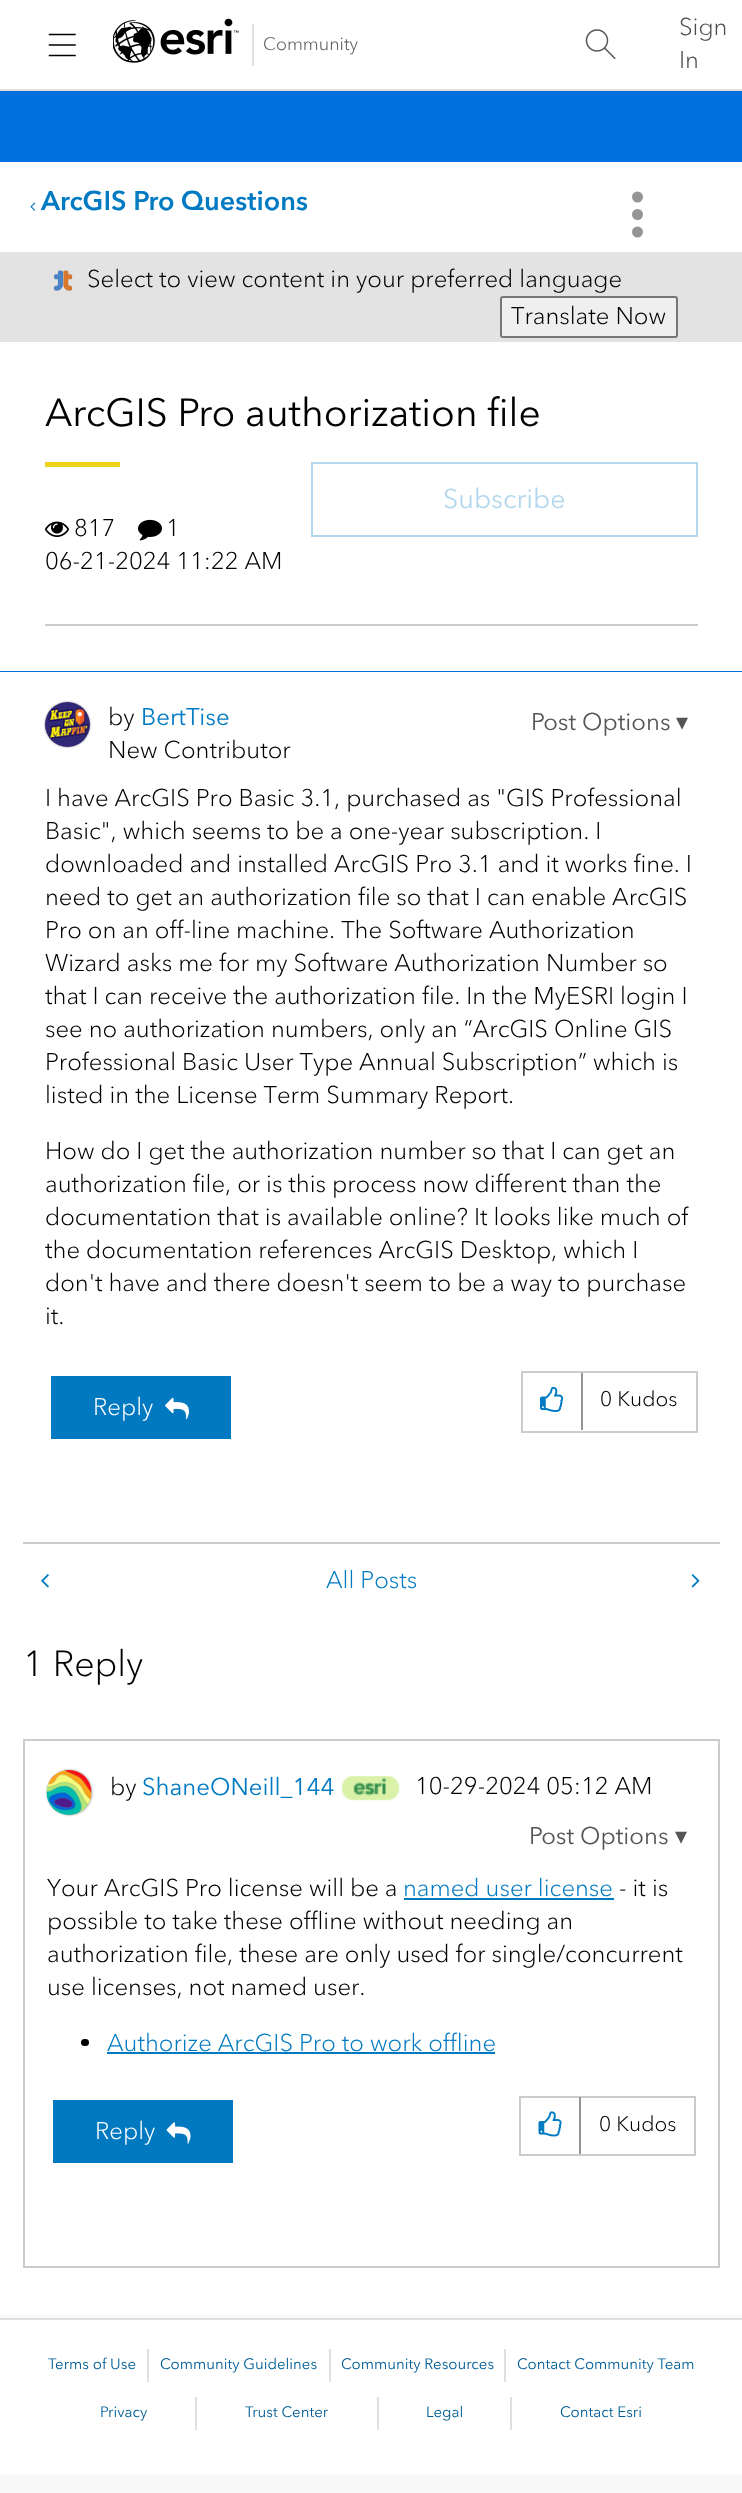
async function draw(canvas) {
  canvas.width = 742
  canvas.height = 2493
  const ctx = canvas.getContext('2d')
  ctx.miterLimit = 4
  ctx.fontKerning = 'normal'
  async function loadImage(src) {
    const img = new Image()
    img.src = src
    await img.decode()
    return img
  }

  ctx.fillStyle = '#f8f8f8'
  ctx.fillRect(0, 0, 742, 2493)
  ctx.fillStyle = '#fff'
  ctx.fillRect(0, 0, 742, 89)
  ctx.fillStyle = '#e0e0e0'
  ctx.fillRect(0, 89, 742, 2)
  ctx.drawImage(await loadImage('image0.png'), 48, 33, 28, 24)
  ctx.drawImage(await loadImage('image1.png'), 113, 18, 126, 45)
  ctx.fillRect(252, 24, 2, 42)
  ctx.font = '300 18px Avenir Next'
  ctx.fillStyle = '#555'
  ctx.fillText('Community', 263, 50)
  ctx.drawImage(await loadImage('image2.png'), 585, 29, 31, 31)
  ctx.font = '300 24px Avenir Next'
  ctx.fillStyle = '#4c4c4c'
  ctx.fillText('Sign', 679, 35)
  ctx.fillText('In', 679, 68)
  ctx.fillStyle = '#006fde'
  ctx.fillRect(0, 91, 742, 581)
  ctx.fillStyle = '#fff'
  ctx.fillRect(0, 162, 742, 90)
  ctx.drawImage(await loadImage('image3.png'), 30, 202, 6, 9)
  ctx.font = 'bold 27px Avenir Next'
  ctx.fillStyle = '#007ac2'
  ctx.fillText('ArcGIS Pro Questions', 41, 210)
  ctx.fillStyle = '#959595'
  ctx.beginPath()
  ctx.arc(637.5, 197, 5.5, 0, 2 * Math.PI)
  ctx.fill()
  ctx.beginPath()
  ctx.arc(637.5, 214.5, 5.5, 0, 2 * Math.PI)
  ctx.fill()
  ctx.beginPath()
  ctx.arc(637.5, 232, 5.5, 0, 2 * Math.PI)
  ctx.fill()
  ctx.fillStyle = '#e3e3e3'
  ctx.fillRect(0, 252, 742, 90)
  ctx.drawImage(await loadImage('image4.png'), 53, 270, 20, 21)
  ctx.font = '300 24px Avenir Next'
  ctx.fillStyle = '#000'
  ctx.fillText('Select to view content in your preferred language', 87, 287)
  ctx.fillStyle = '#efefef'
  ctx.beginPath()
  ctx.roundRect(501, 297, 176, 40, 2)
  ctx.fill()
  ctx.strokeStyle = '#767676'
  ctx.lineWidth = 2
  ctx.stroke()
  ctx.fillStyle = '#000'
  ctx.fillText('Translate Now', 511, 324)
  ctx.fillStyle = '#fff'
  ctx.fillRect(0, 342, 742, 329)
  ctx.font = '39px Avenir Next'
  ctx.fillStyle = '#000'
  ctx.fillText('ArcGIS Pro authorization file', 45, 426)
  ctx.fillStyle = '#edd317'
  ctx.fillRect(45, 462, 75, 5)
  ctx.strokeStyle = '#b3d7ed'
  ctx.strokeRect(312, 463, 385, 73)
  ctx.font = '27px Avenir Next'
  ctx.fillStyle = '#b3d7ed'
  ctx.fillText('Subscribe', 443, 508)
  ctx.drawImage(await loadImage('image5.png'), 45, 521, 24, 16)
  ctx.font = '300 24px Avenir Next'
  ctx.fillStyle = '#000'
  ctx.fillText('817', 74, 536)
  ctx.drawImage(await loadImage('image6.png'), 138, 519, 24, 22)
  ctx.fillText('1', 166, 536)
  ctx.fillText('06-21-2024 11:22 AM', 45, 569)
  ctx.fillStyle = '#ccc'
  ctx.fillRect(45, 624, 653, 2)
  ctx.fillStyle = '#fff'
  ctx.fillRect(0, 672, 742, 1643)
  ctx.fillStyle = '#959595'
  ctx.filter = 'blur(1px)'
  ctx.beginPath()
  ctx.roundRect(45, 702, 45, 45, 22.5)
  ctx.fill()
  ctx.filter = 'none'
  ctx.drawImage(await loadImage('image7.png'), 45, 702, 45, 45)
  ctx.fillStyle = '#000'
  ctx.fillText('by', 108, 725)
  ctx.font = '24px Avenir Next'
  ctx.fillStyle = '#007ac2'
  ctx.fillText('BertTise', 141, 725)
  ctx.font = '300 24px Avenir Next'
  ctx.fillStyle = '#000'
  ctx.fillText('New Contributor', 108, 758)
  ctx.font = '24px Avenir Next'
  ctx.fillStyle = '#555'
  ctx.fillText('Post Options', 531, 730)
  ctx.font = '24px DejaVu Sans'
  ctx.fillText('▾', 676, 730)
  ctx.font = '300 24px Avenir Next'
  ctx.fillStyle = '#000'
  ctx.fillText('I have ArcGIS Pro Basic 3.1, purchased as "GIS Professional', 45, 806)
  ctx.fillText('Basic", which seems to be a one-year subscription. I', 45, 839)
  ctx.fillText('downloaded and installed ArcGIS Pro 3.1 and it works fine. I', 45, 872)
  ctx.fillText('need to get an authorization file so that I can enable ArcGIS', 45, 905)
  ctx.fillText('Pro on an off-line machine. The Software Authorization', 45, 938)
  ctx.fillText('Wizard asks me for my Software Authorization Number so', 45, 971)
  ctx.fillText('that I can receive the authorization file. In the MyESRI login I', 45, 1004)
  ctx.fillText('see no authorization numbers, only an “ArcGIS Online GIS', 45, 1037)
  ctx.fillText('Professional Basic User Type Annual Subscription” which is', 45, 1070)
  ctx.fillText('listed in the License Term Summary Report.', 45, 1103)
  ctx.fillText('How do I get the authorization number so that I can get an', 45, 1159)
  ctx.fillText('authorization file, or is this process now different than the', 45, 1192)
  ctx.fillText('documentation that is available online? It looks like much of', 45, 1225)
  ctx.fillText('the documentation references ArcGIS Desktop, which I', 45, 1258)
  ctx.fillText('don\'t have and there doesn\'t seem to be a way to purchase', 45, 1291)
  ctx.fillText('it.', 45, 1324)
  ctx.fillStyle = '#0079c1'
  ctx.fillRect(51, 1376, 180, 63)
  ctx.fillStyle = '#fff'
  ctx.fillText('Reply', 93, 1415)
  ctx.drawImage(await loadImage('image8.png'), 165, 1397, 24, 23)
  ctx.strokeStyle = '#ccc'
  ctx.strokeRect(522, 1372, 175, 60)
  ctx.drawImage(await loadImage('image9.png'), 540, 1386, 24, 26)
  ctx.fillStyle = '#959595'
  ctx.fillRect(581, 1373, 2, 57)
  ctx.font = '300 21px Avenir Next'
  ctx.fillStyle = '#000'
  ctx.fillText('0 Kudos', 600, 1406)
  ctx.fillStyle = '#ccc'
  ctx.fillRect(23, 1542, 697, 2)
  ctx.drawImage(await loadImage('image10.png'), 41, 1574, 8, 14)
  ctx.font = '300 24px Avenir Next'
  ctx.fillStyle = '#007ac2'
  ctx.fillText('All Posts', 326, 1588)
  ctx.drawImage(await loadImage('image11.png'), 691, 1574, 9, 14)
  ctx.font = '300 36px Avenir Next'
  ctx.fillStyle = '#000'
  ctx.fillText('1 Reply', 23, 1676)
  ctx.strokeRect(24, 1740, 695, 527)
  ctx.fillStyle = '#959595'
  ctx.filter = 'blur(1px)'
  ctx.beginPath()
  ctx.roundRect(47, 1770, 45, 45, 22.5)
  ctx.fill()
  ctx.filter = 'none'
  ctx.drawImage(await loadImage('image12.png'), 46, 1770, 46, 45)
  ctx.font = '300 24px Avenir Next'
  ctx.fillStyle = '#000'
  ctx.fillText('by', 110, 1795)
  ctx.font = '24px Avenir Next'
  ctx.fillStyle = '#007ac2'
  ctx.fillText('ShaneONeill_144', 142, 1795)
  ctx.drawImage(await loadImage('image13.png'), 341, 1775, 59, 26)
  ctx.font = '300 24px Avenir Next'
  ctx.fillStyle = '#000'
  ctx.fillText('10-29-2024 05:12 AM', 415, 1794)
  ctx.font = '24px Avenir Next'
  ctx.fillStyle = '#555'
  ctx.fillText('Post Options', 529, 1844)
  ctx.font = '24px DejaVu Sans'
  ctx.fillText('▾', 675, 1844)
  ctx.font = '300 24px Avenir Next'
  ctx.fillStyle = '#000'
  ctx.fillText('Your ArcGIS Pro license will be a', 47, 1896)
  ctx.fillStyle = '#007ac2'
  ctx.fillText('named user license', 403, 1896)
  ctx.fillStyle = '#0079c1'
  ctx.fillRect(404, 1898, 210, 2)
  ctx.fillStyle = '#000'
  ctx.fillText('- it is', 619, 1896)
  ctx.fillText('possible to take these offline without needing an', 47, 1929)
  ctx.fillText('authorization file, these are only used for single/concurrent', 47, 1962)
  ctx.fillText('use licenses, not named user.', 47, 1995)
  ctx.beginPath()
  ctx.roundRect(81, 2039, 8, 7, 3.5)
  ctx.fill()
  ctx.fillStyle = '#007ac2'
  ctx.fillText('Authorize ArcGIS Pro to work offline', 107, 2051)
  ctx.fillStyle = '#0079c1'
  ctx.fillRect(107, 2052, 388, 2)
  ctx.fillRect(53, 2100, 180, 63)
  ctx.fillStyle = '#fff'
  ctx.fillText('Reply', 95, 2139)
  ctx.drawImage(await loadImage('image14.png'), 166, 2122, 25, 22)
  ctx.strokeRect(520, 2097, 175, 58)
  ctx.drawImage(await loadImage('image15.png'), 538, 2111, 24, 26)
  ctx.fillStyle = '#959595'
  ctx.fillRect(579, 2097, 2, 57)
  ctx.font = '300 21px Avenir Next'
  ctx.fillStyle = '#000'
  ctx.fillText('0 Kudos', 599, 2131)
  ctx.fillStyle = '#fff'
  ctx.fillRect(0, 2320, 742, 155)
  ctx.fillStyle = '#e0e0e0'
  ctx.fillRect(0, 2318, 742, 2)
  ctx.font = '15px Avenir Next'
  ctx.fillStyle = '#005e95'
  ctx.fillText('Terms of Use', 48, 2369)
  ctx.fillStyle = '#e0e0e0'
  ctx.fillRect(147, 2349, 2, 33)
  ctx.fillStyle = '#005e95'
  ctx.fillText('Community Guidelines', 160, 2369)
  ctx.fillStyle = '#e0e0e0'
  ctx.fillRect(329, 2349, 2, 33)
  ctx.fillStyle = '#005e95'
  ctx.fillText('Community Resources', 341, 2369)
  ctx.fillStyle = '#e0e0e0'
  ctx.fillRect(504, 2349, 2, 33)
  ctx.fillStyle = '#005e95'
  ctx.fillText('Contact Community Team', 517, 2369)
  ctx.fillText('Privacy', 100, 2417)
  ctx.fillStyle = '#e0e0e0'
  ctx.fillRect(195, 2397, 2, 33)
  ctx.fillStyle = '#005e95'
  ctx.fillText('Trust Center', 245, 2417)
  ctx.fillStyle = '#e0e0e0'
  ctx.fillRect(377, 2397, 2, 33)
  ctx.fillStyle = '#005e95'
  ctx.fillText('Legal', 426, 2417)
  ctx.fillStyle = '#e0e0e0'
  ctx.fillRect(510, 2397, 2, 33)
  ctx.fillStyle = '#005e95'
  ctx.fillText('Contact Esri', 560, 2417)
}

draw(document.querySelector('canvas'))
